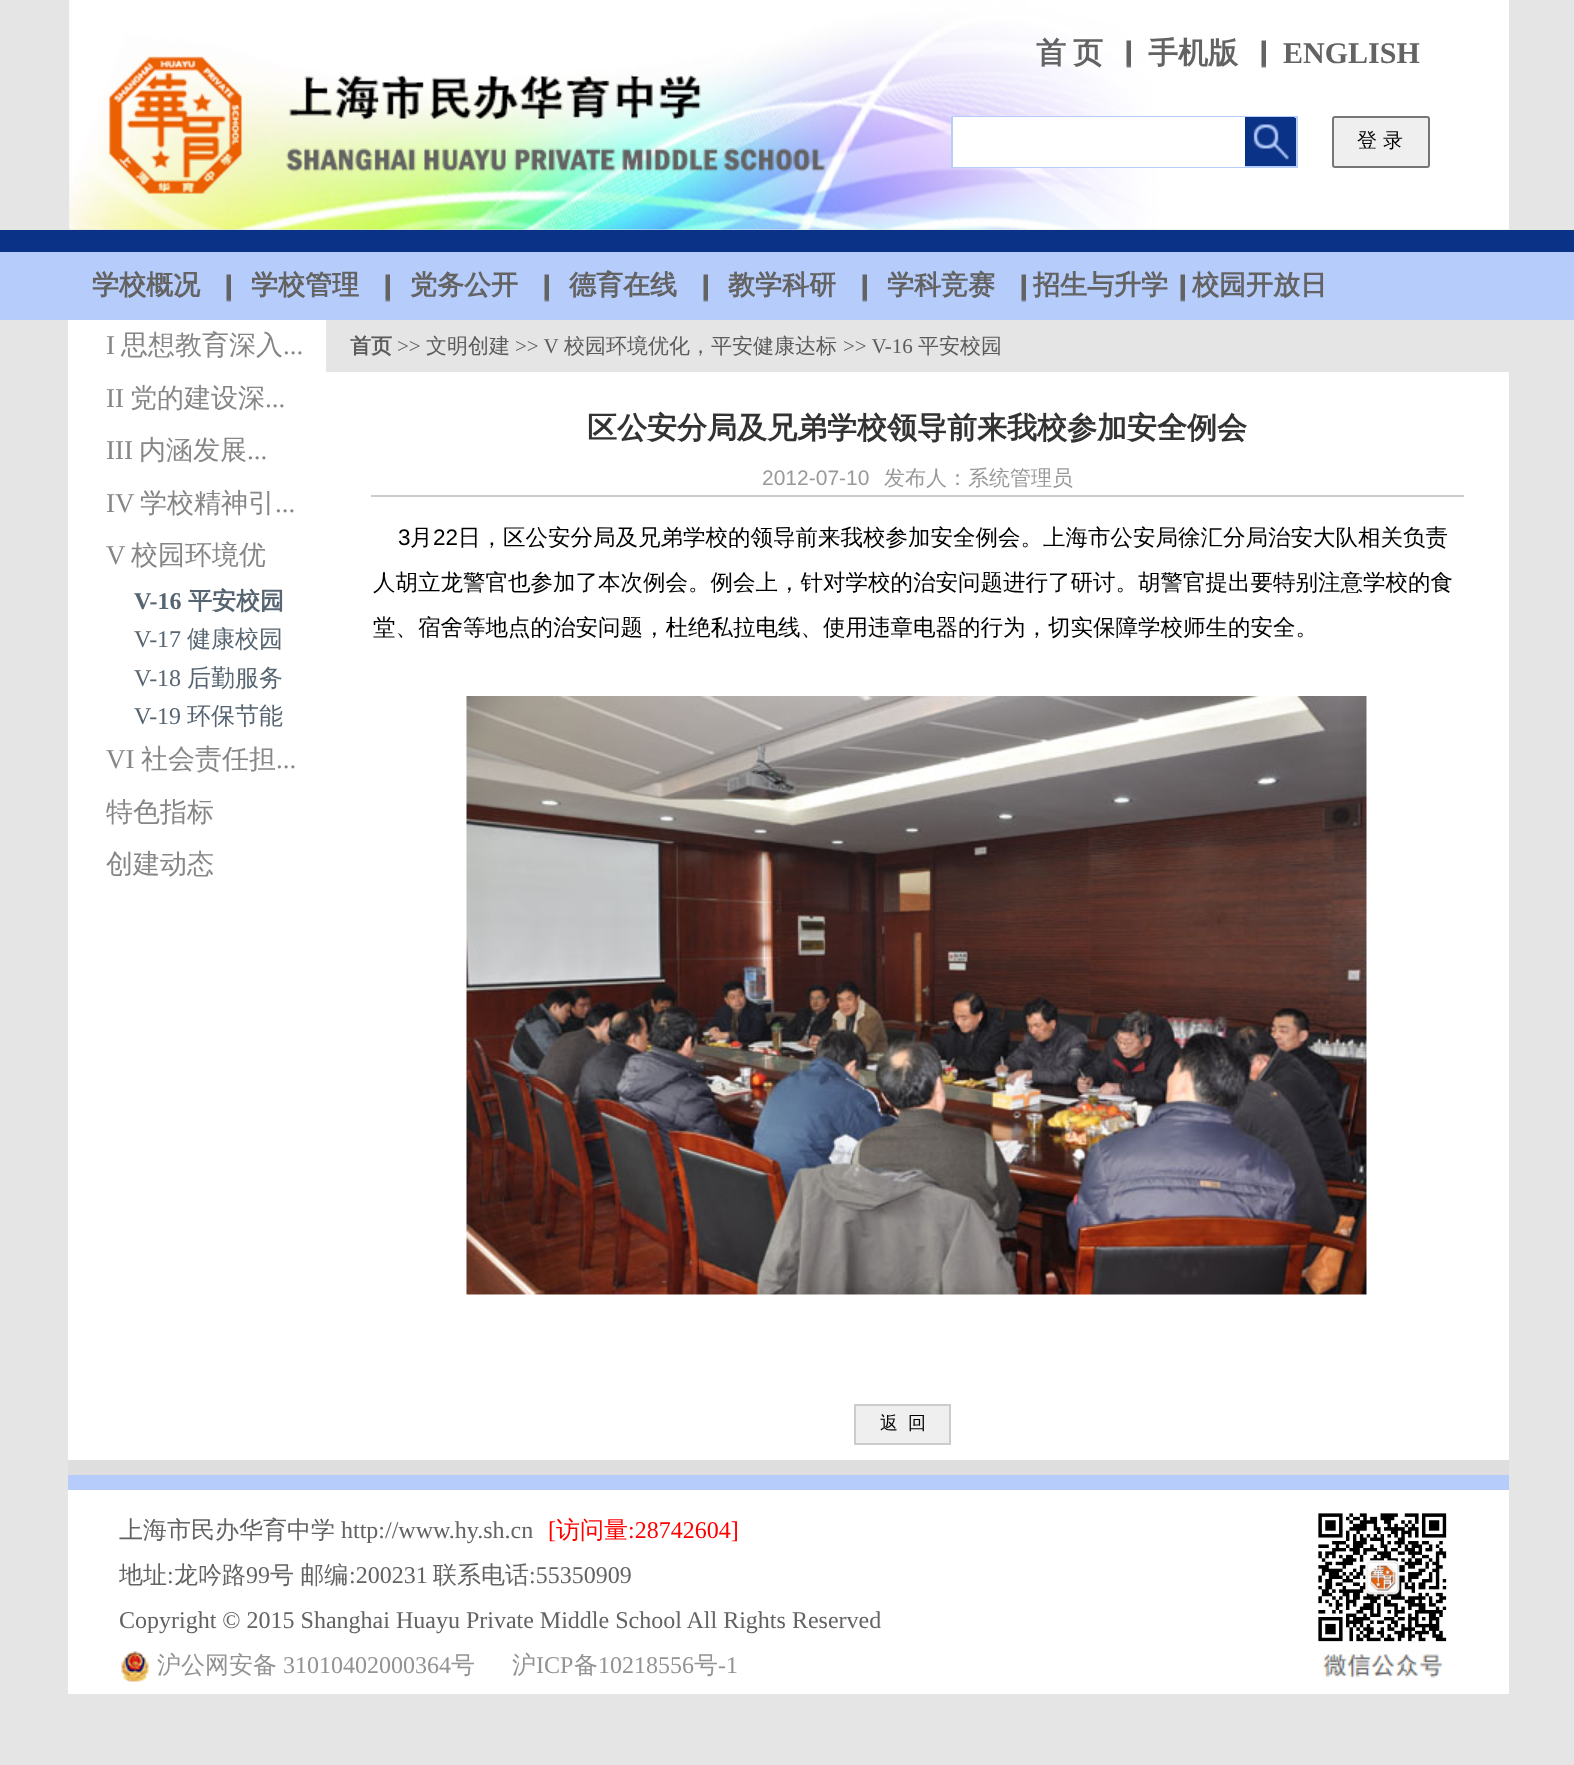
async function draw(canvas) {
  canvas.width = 1574
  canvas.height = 1765
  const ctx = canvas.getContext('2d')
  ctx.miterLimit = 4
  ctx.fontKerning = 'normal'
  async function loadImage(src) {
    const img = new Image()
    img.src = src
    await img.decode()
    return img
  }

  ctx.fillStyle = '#e5e5e5'
  ctx.fillRect(0, 0, 1574, 1765)
  ctx.drawImage(await loadImage('image0.png'), 69, 0, 1440, 230)
  ctx.font = 'bold 30px WenQuanYi Zen Hei'
  ctx.fillStyle = '#646363'
  ctx.fillText('首', 1036, 63)
  ctx.fillText('页', 1073, 63)
  ctx.drawImage(await loadImage('image1.png'), 1126, 40, 5, 28)
  ctx.fillText('手机版', 1148, 63)
  ctx.drawImage(await loadImage('image2.png'), 1261, 40, 5, 28)
  ctx.font = 'bold 30px Liberation Serif'
  ctx.fillText('ENGLISH', 1283, 63)
  ctx.fillStyle = '#0a3387'
  ctx.fillRect(1245, 118, 51, 48)
  ctx.strokeStyle = '#b6cdfc'
  ctx.lineWidth = 2
  ctx.strokeRect(952, 117, 345, 50)
  ctx.fillStyle = '#fff'
  ctx.fillRect(953, 117, 292, 50)
  ctx.drawImage(await loadImage('image3.png'), 1245, 117, 50, 43)
  ctx.fillStyle = '#efefef'
  ctx.beginPath()
  ctx.roundRect(1333, 117, 96, 50, 2)
  ctx.fill()
  ctx.strokeStyle = '#767676'
  ctx.stroke()
  ctx.font = '500 20px WenQuanYi Zen Hei'
  ctx.fillStyle = '#000'
  ctx.fillText('登 录', 1357, 147)
  ctx.fillStyle = '#0a3387'
  ctx.fillRect(0, 230, 1574, 22)
  ctx.fillStyle = '#b6cdfc'
  ctx.fillRect(0, 252, 1574, 68)
  ctx.font = 'bold 27px WenQuanYi Zen Hei'
  ctx.fillStyle = '#646363'
  ctx.fillText('学校概况', 92, 294)
  ctx.drawImage(await loadImage('image4.png'), 226, 274, 5, 28)
  ctx.fillText('学校管理', 251, 294)
  ctx.drawImage(await loadImage('image4.png'), 385, 274, 5, 28)
  ctx.fillText('党务公开', 410, 294)
  ctx.drawImage(await loadImage('image4.png'), 544, 274, 5, 28)
  ctx.fillText('德育在线', 569, 294)
  ctx.drawImage(await loadImage('image4.png'), 703, 274, 5, 28)
  ctx.fillText('教学科研', 728, 294)
  ctx.drawImage(await loadImage('image4.png'), 862, 274, 5, 28)
  ctx.fillText('学科竞赛', 887, 294)
  ctx.drawImage(await loadImage('image4.png'), 1021, 274, 5, 28)
  ctx.fillText('招生与升学', 1033, 294)
  ctx.drawImage(await loadImage('image4.png'), 1180, 274, 5, 28)
  ctx.fillText('校园开放日', 1192, 294)
  ctx.fillStyle = '#fff'
  ctx.fillRect(68, 320, 1441, 1140)
  ctx.font = '27px Liberation Serif'
  ctx.fillStyle = '#868686'
  ctx.fillText('I', 106, 354)
  ctx.font = '500 27px WenQuanYi Zen Hei'
  ctx.fillText('思想教育深入', 121, 354)
  ctx.font = '27px Liberation Serif'
  ctx.fillText('...', 283, 354)
  ctx.fillText('II', 106, 407)
  ctx.font = '500 27px WenQuanYi Zen Hei'
  ctx.fillText('党的建设深', 130, 407)
  ctx.font = '27px Liberation Serif'
  ctx.fillText('...', 265, 407)
  ctx.fillText('III', 106, 459)
  ctx.font = '500 27px WenQuanYi Zen Hei'
  ctx.fillText('内涵发展', 139, 459)
  ctx.font = '27px Liberation Serif'
  ctx.fillText('...', 247, 459)
  ctx.fillText('IV', 106, 512)
  ctx.font = '500 27px WenQuanYi Zen Hei'
  ctx.fillText('学校精神引', 140, 512)
  ctx.font = '27px Liberation Serif'
  ctx.fillText('...', 275, 512)
  ctx.fillText('V', 106, 564)
  ctx.font = '500 27px WenQuanYi Zen Hei'
  ctx.fillText('校园环境优', 131, 564)
  ctx.font = 'bold 24px Liberation Serif'
  ctx.fillStyle = '#566571'
  ctx.fillText('V-16', 134, 609)
  ctx.font = 'bold 24px WenQuanYi Zen Hei'
  ctx.fillText('平安校园', 188, 609)
  ctx.font = '24px Liberation Serif'
  ctx.fillText('V-17', 134, 647)
  ctx.font = '500 24px WenQuanYi Zen Hei'
  ctx.fillText('健康校园', 187, 647)
  ctx.font = '24px Liberation Serif'
  ctx.fillText('V-18', 134, 686)
  ctx.font = '500 24px WenQuanYi Zen Hei'
  ctx.fillText('后勤服务', 187, 686)
  ctx.font = '24px Liberation Serif'
  ctx.fillText('V-19', 134, 724)
  ctx.font = '500 24px WenQuanYi Zen Hei'
  ctx.fillText('环保节能', 187, 724)
  ctx.font = '27px Liberation Serif'
  ctx.fillStyle = '#868686'
  ctx.fillText('VI', 106, 768)
  ctx.font = '500 27px WenQuanYi Zen Hei'
  ctx.fillText('社会责任担', 141, 768)
  ctx.font = '27px Liberation Serif'
  ctx.fillText('...', 276, 768)
  ctx.font = '500 27px WenQuanYi Zen Hei'
  ctx.fillText('特色指标', 106, 821)
  ctx.fillText('创建动态', 106, 873)
  ctx.fillStyle = '#e5e5e5'
  ctx.fillRect(326, 320, 1183, 52)
  ctx.font = 'bold 21px WenQuanYi Zen Hei'
  ctx.fillStyle = '#5b5b5b'
  ctx.fillText('首页', 350, 353)
  ctx.font = '21px Liberation Serif'
  ctx.fillText('>>', 397, 353)
  ctx.font = '500 21px WenQuanYi Zen Hei'
  ctx.fillText('文明创建', 426, 353)
  ctx.font = '21px Liberation Serif'
  ctx.fillText('>> V', 515, 353)
  ctx.font = '500 21px WenQuanYi Zen Hei'
  ctx.fillText('校园环境优化，平安健康达标', 564, 353)
  ctx.font = '21px Liberation Serif'
  ctx.fillText('>> V-16', 843, 353)
  ctx.font = '500 21px WenQuanYi Zen Hei'
  ctx.fillText('平安校园', 918, 353)
  ctx.font = 'bold 30px WenQuanYi Zen Hei'
  ctx.fillStyle = '#333'
  ctx.fillText('区公安分局及兄弟学校领导前来我校参加安全例会', 587, 438)
  ctx.fillStyle = '#ccc'
  ctx.fillRect(371, 495, 1093, 2)
  ctx.font = '21px Liberation Sans'
  ctx.fillStyle = '#999'
  ctx.fillText('2012-07-10', 762, 485)
  ctx.font = '500 21px WenQuanYi Zen Hei'
  ctx.fillText('发布人：系统管理员', 884, 485)
  ctx.font = '22.5px Liberation Sans'
  ctx.fillStyle = '#000'
  ctx.fillText('3', 398, 545)
  ctx.font = '500 22.5px WenQuanYi Zen Hei'
  ctx.fillText('月', 410, 545)
  ctx.font = '22.5px Liberation Sans'
  ctx.fillText('22', 433, 545)
  ctx.font = '500 22.5px WenQuanYi Zen Hei'
  ctx.fillText('日，区公安分局及兄弟学校的领导前来我校参加安全例会。上海市公安局徐汇分局治安大队相关负责', 458, 545)
  ctx.fillText('人胡立龙警官也参加了本次例会。例会上，针对学校的治安问题进行了研讨。胡警官提出要特别注意学校的食', 373, 590)
  ctx.fillText('堂、宿舍等地点的治安问题，杜绝私拉电线、使用违章电器的行为，切实保障学校师生的安全。', 373, 635)
  ctx.drawImage(await loadImage('image5.png'), 466, 696, 901, 599)
  ctx.fillStyle = '#efefef'
  ctx.beginPath()
  ctx.rect(855, 1405, 95, 39)
  ctx.fill()
  ctx.strokeStyle = '#ccc'
  ctx.stroke()
  ctx.font = '500 18px WenQuanYi Zen Hei'
  ctx.fillStyle = '#000'
  ctx.fillText('返', 880, 1429)
  ctx.fillText('回', 908, 1429)
  ctx.fillStyle = '#dedede'
  ctx.fillRect(68, 1460, 1441, 15)
  ctx.fillStyle = '#b6cdfc'
  ctx.fillRect(68, 1475, 1441, 15)
  ctx.fillStyle = '#fff'
  ctx.fillRect(68, 1490, 1441, 204)
  ctx.font = '500 24px WenQuanYi Zen Hei'
  ctx.fillStyle = '#646363'
  ctx.fillText('上海市民办华育中学', 119, 1538)
  ctx.font = '24px Liberation Serif'
  ctx.fillText('http://www.hy.sh.cn', 341, 1538)
  ctx.fillStyle = '#f00'
  ctx.fillText('[', 548, 1538)
  ctx.font = '500 24px WenQuanYi Zen Hei'
  ctx.fillText('访问量', 556, 1538)
  ctx.font = '24px Liberation Serif'
  ctx.fillText(':28742604]', 628, 1538)
  ctx.font = '500 24px WenQuanYi Zen Hei'
  ctx.fillStyle = '#646363'
  ctx.fillText('地址', 119, 1583)
  ctx.font = '24px Liberation Serif'
  ctx.fillText(':', 167, 1583)
  ctx.font = '500 24px WenQuanYi Zen Hei'
  ctx.fillText('龙吟路', 174, 1583)
  ctx.font = '24px Liberation Serif'
  ctx.fillText('99', 246, 1583)
  ctx.wordSpacing = '-1px'
  ctx.font = '500 24px WenQuanYi Zen Hei'
  ctx.fillText('号 邮编', 270, 1583)
  ctx.wordSpacing = '0px'
  ctx.font = '24px Liberation Serif'
  ctx.fillText(':200231', 349, 1583)
  ctx.font = '500 24px WenQuanYi Zen Hei'
  ctx.fillText('联系电话', 433, 1583)
  ctx.font = '24px Liberation Serif'
  ctx.fillText(':55350909', 529, 1583)
  ctx.fillText('Copyright © 2015 Shanghai Huayu Private Middle School All Rights Reserved', 119, 1628)
  ctx.drawImage(await loadImage('image6.png'), 121, 1651, 28, 31)
  ctx.font = '500 24px WenQuanYi Zen Hei'
  ctx.fillStyle = '#939393'
  ctx.fillText('沪公网安备', 157, 1673)
  ctx.font = '24px Liberation Serif'
  ctx.fillText('31010402000364', 283, 1673)
  ctx.font = '500 24px WenQuanYi Zen Hei'
  ctx.fillText('号', 451, 1673)
  ctx.fillText('沪', 512, 1673)
  ctx.font = '24px Liberation Serif'
  ctx.fillText('ICP', 536, 1673)
  ctx.font = '500 24px WenQuanYi Zen Hei'
  ctx.fillText('备', 574, 1673)
  ctx.font = '24px Liberation Serif'
  ctx.fillText('10218556', 598, 1673)
  ctx.font = '500 24px WenQuanYi Zen Hei'
  ctx.fillText('号', 694, 1673)
  ctx.font = '24px Liberation Serif'
  ctx.fillText('-1', 718, 1673)
  ctx.drawImage(await loadImage('image7.png'), 1318, 1513, 129, 129)
  ctx.drawImage(await loadImage('image8.png'), 1322, 1650, 122, 28)
}

draw(document.querySelector('canvas'))
